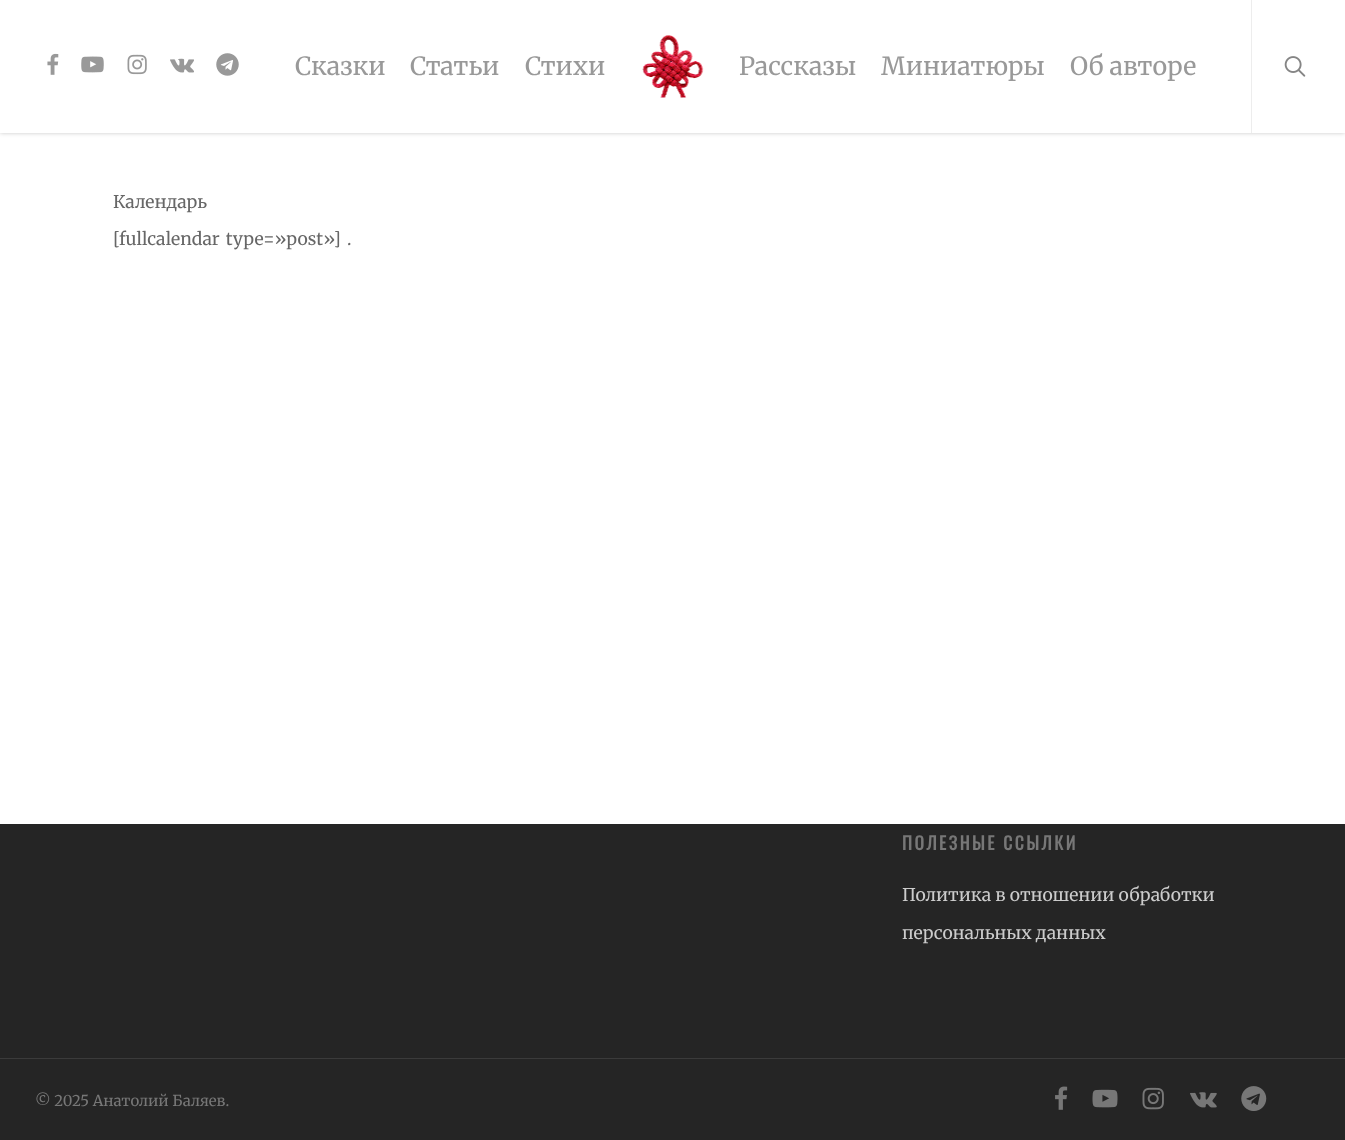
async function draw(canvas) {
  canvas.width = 1345
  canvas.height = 1140
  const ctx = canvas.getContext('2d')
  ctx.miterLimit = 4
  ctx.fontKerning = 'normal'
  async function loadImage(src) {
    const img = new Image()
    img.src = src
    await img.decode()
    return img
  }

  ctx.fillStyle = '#252525'
  ctx.fillRect(0, 0, 1345, 1140)
  ctx.fillStyle = '#fff'
  ctx.fillRect(0, 133, 1345, 691)
  ctx.fillStyle = '#00000038'
  ctx.filter = 'blur(2px)'
  ctx.beginPath()
  ctx.rect(0, 0, 1345, 133)
  ctx.fill()
  ctx.filter = 'none'
  ctx.fillStyle = '#fff'
  ctx.fillRect(0, 0, 1345, 133)
  ctx.drawImage(await loadImage('image0.png'), 642, 35, 62, 63)
  ctx.drawImage(await loadImage('image1.png'), 47, 53, 12, 22)
  ctx.drawImage(await loadImage('image2.png'), 81, 56, 23, 17)
  ctx.drawImage(await loadImage('image3.png'), 127, 54, 20, 21)
  ctx.drawImage(await loadImage('image4.png'), 170, 58, 24, 15)
  ctx.drawImage(await loadImage('image5.png'), 216, 53, 23, 23)
  ctx.font = '300 25px Merriweather'
  ctx.fillStyle = '#999'
  ctx.fillText('Сказки', 295, 75)
  ctx.fillText('Статьи', 410, 75)
  ctx.fillText('Стихи', 525, 75)
  ctx.fillText('Рассказы', 739, 75)
  ctx.fillText('Миниатюры', 881, 75)
  ctx.fillText('Об авторе', 1070, 75)
  ctx.fillStyle = '#ededed'
  ctx.fillRect(1251, 0, 1, 133)
  ctx.drawImage(await loadImage('image6.png'), 1284, 56, 22, 21)
  ctx.font = '300 17.5px Merriweather'
  ctx.fillStyle = '#676767'
  ctx.fillText('Календарь', 113, 208)
  ctx.wordSpacing = '2px'
  ctx.fillText('[fullcalendar type=»post»] .', 113, 245)
  ctx.letterSpacing = '2.5px'
  ctx.wordSpacing = '0px'
  ctx.font = 'bold 17.5px Oswald'
  ctx.fillStyle = '#777'
  ctx.fillText('ПОЛЕЗНЫЕ ССЫЛКИ', 902, 850)
  ctx.letterSpacing = '0px'
  ctx.font = '300 17.5px Merriweather'
  ctx.fillStyle = '#ccc'
  ctx.fillText('Политика в отношении обработки', 902, 901)
  ctx.fillText('персональных данных', 902, 939)
  ctx.fillStyle = '#3b3b3b'
  ctx.fillRect(0, 1058, 1345, 1)
  ctx.font = '300 15px Merriweather'
  ctx.fillStyle = '#777'
  ctx.fillText('© 2025 Анатолий Баляев.', 35, 1106)
  ctx.drawImage(await loadImage('image7.png'), 1055, 1086, 13, 24)
  ctx.drawImage(await loadImage('image8.png'), 1092, 1089, 26, 19)
  ctx.drawImage(await loadImage('image9.png'), 1142, 1087, 22, 23)
  ctx.drawImage(await loadImage('image10.png'), 1190, 1092, 27, 16)
  ctx.drawImage(await loadImage('image11.png'), 1241, 1086, 26, 25)
}

draw(document.querySelector('canvas'))
